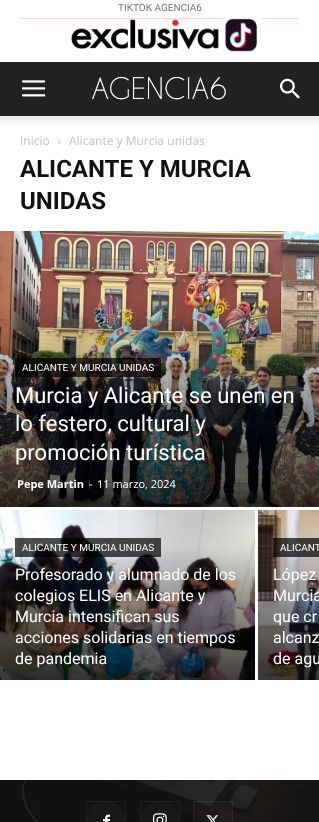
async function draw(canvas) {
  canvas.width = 319
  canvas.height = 822
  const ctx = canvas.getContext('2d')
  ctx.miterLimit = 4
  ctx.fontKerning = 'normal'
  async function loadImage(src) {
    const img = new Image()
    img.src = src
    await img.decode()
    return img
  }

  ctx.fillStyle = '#fff'
  ctx.fillRect(0, 0, 319, 822)
  ctx.font = '10px Roboto'
  ctx.fillStyle = '#767676'
  ctx.fillText('TIKTOK AGENCIA6', 118, 11)
  ctx.drawImage(await loadImage('image0.png'), 20, 18, 279, 34)
  ctx.fillStyle = '#222'
  ctx.fillRect(0, 62, 319, 54)
  ctx.drawImage(await loadImage('image1.png'), 22, 80, 24, 17)
  ctx.drawImage(await loadImage('image2.png'), 92, 77, 134, 23)
  ctx.drawImage(await loadImage('image3.png'), 280, 78, 20, 21)
  ctx.drawImage(await loadImage('image4.png'), 0, 116, 319, 9)
  ctx.font = '12px Open Sans'
  ctx.fillStyle = '#c3c3c3'
  ctx.fillText('Inicio', 20, 145)
  ctx.drawImage(await loadImage('image5.png'), 58, 139, 3, 5)
  ctx.fillText('Alicante y Murcia unidas', 69, 145)
  ctx.font = 'bold 24px Roboto'
  ctx.fillStyle = '#111'
  ctx.fillText('ALICANTE Y MURCIA', 20, 177)
  ctx.fillText('UNIDAS', 20, 209)
  ctx.drawImage(await loadImage('image6.png'), 0, 231, 319, 276)
  ctx.fillStyle = '#000000b3'
  ctx.fillRect(15, 358, 146, 19)
  ctx.font = '10px Roboto'
  ctx.fillStyle = '#fff'
  ctx.fillText('ALICANTE Y MURCIA UNIDAS', 22, 371)
  ctx.font = '22px Roboto'
  ctx.fillText('Murcia y Alicante se unen en', 15, 403)
  ctx.fillText('lo festero, cultural y', 15, 431)
  ctx.fillText('promoción turística', 15, 460)
  ctx.font = 'bold 11px Open Sans'
  ctx.fillText('Pepe Martin', 17, 488)
  ctx.font = '11px Open Sans'
  ctx.fillText('-', 89, 488)
  ctx.fillText('11 marzo, 2024', 97, 488)
  ctx.drawImage(await loadImage('image7.png'), 0, 510, 255, 170)
  ctx.fillStyle = '#000000b3'
  ctx.fillRect(15, 538, 146, 19)
  ctx.font = '10px Roboto'
  ctx.fillStyle = '#fff'
  ctx.fillText('ALICANTE Y MURCIA UNIDAS', 22, 551)
  ctx.font = '16px Roboto'
  ctx.fillText('Profesorado y alumnado de los', 15, 580)
  ctx.fillText('colegios ELIS en Alicante y', 15, 601)
  ctx.fillText('Murcia intensifican sus', 15, 622)
  ctx.fillText('acciones solidarias en tiempos', 15, 643)
  ctx.fillText('de pandemia', 15, 664)
  ctx.drawImage(await loadImage('image8.png'), 258, 510, 61, 170)
  ctx.fillStyle = '#000000b3'
  ctx.fillRect(273, 538, 46, 19)
  ctx.font = '10px Roboto'
  ctx.fillStyle = '#fff'
  ctx.fillText('ALICANT', 280, 551)
  ctx.font = '16px Roboto'
  ctx.fillText('López', 273, 580)
  ctx.fillText('Murcia', 273, 601)
  ctx.fillText('que cr', 273, 622)
  ctx.fillText('alcanz', 273, 643)
  ctx.fillText('de agu', 273, 664)
  ctx.fillStyle = '#111'
  ctx.fillRect(0, 780, 319, 42)
  ctx.drawImage(await loadImage('image9.png'), 22, 780, 297, 42)
  ctx.fillStyle = '#181818'
  ctx.beginPath()
  ctx.arc(106, 821, 20, 0, 2 * Math.PI)
  ctx.fill()
  ctx.drawImage(await loadImage('image10.png'), 103, 814, 7, 8)
  ctx.strokeStyle = '#ffffff0d'
  ctx.strokeRect(86.5, 801.5, 39, 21)
  ctx.beginPath()
  ctx.arc(160, 821, 20, 0, 2 * Math.PI)
  ctx.fill()
  ctx.drawImage(await loadImage('image11.png'), 153, 813, 14, 9)
  ctx.strokeRect(140.5, 801.5, 39, 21)
  ctx.fillStyle = '#ffffff08'
  ctx.fillRect(193, 801, 40, 21)
  ctx.drawImage(await loadImage('image12.png'), 206, 815, 12, 7)
  ctx.strokeRect(193.5, 801.5, 39, 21)
}

draw(document.querySelector('canvas'))
